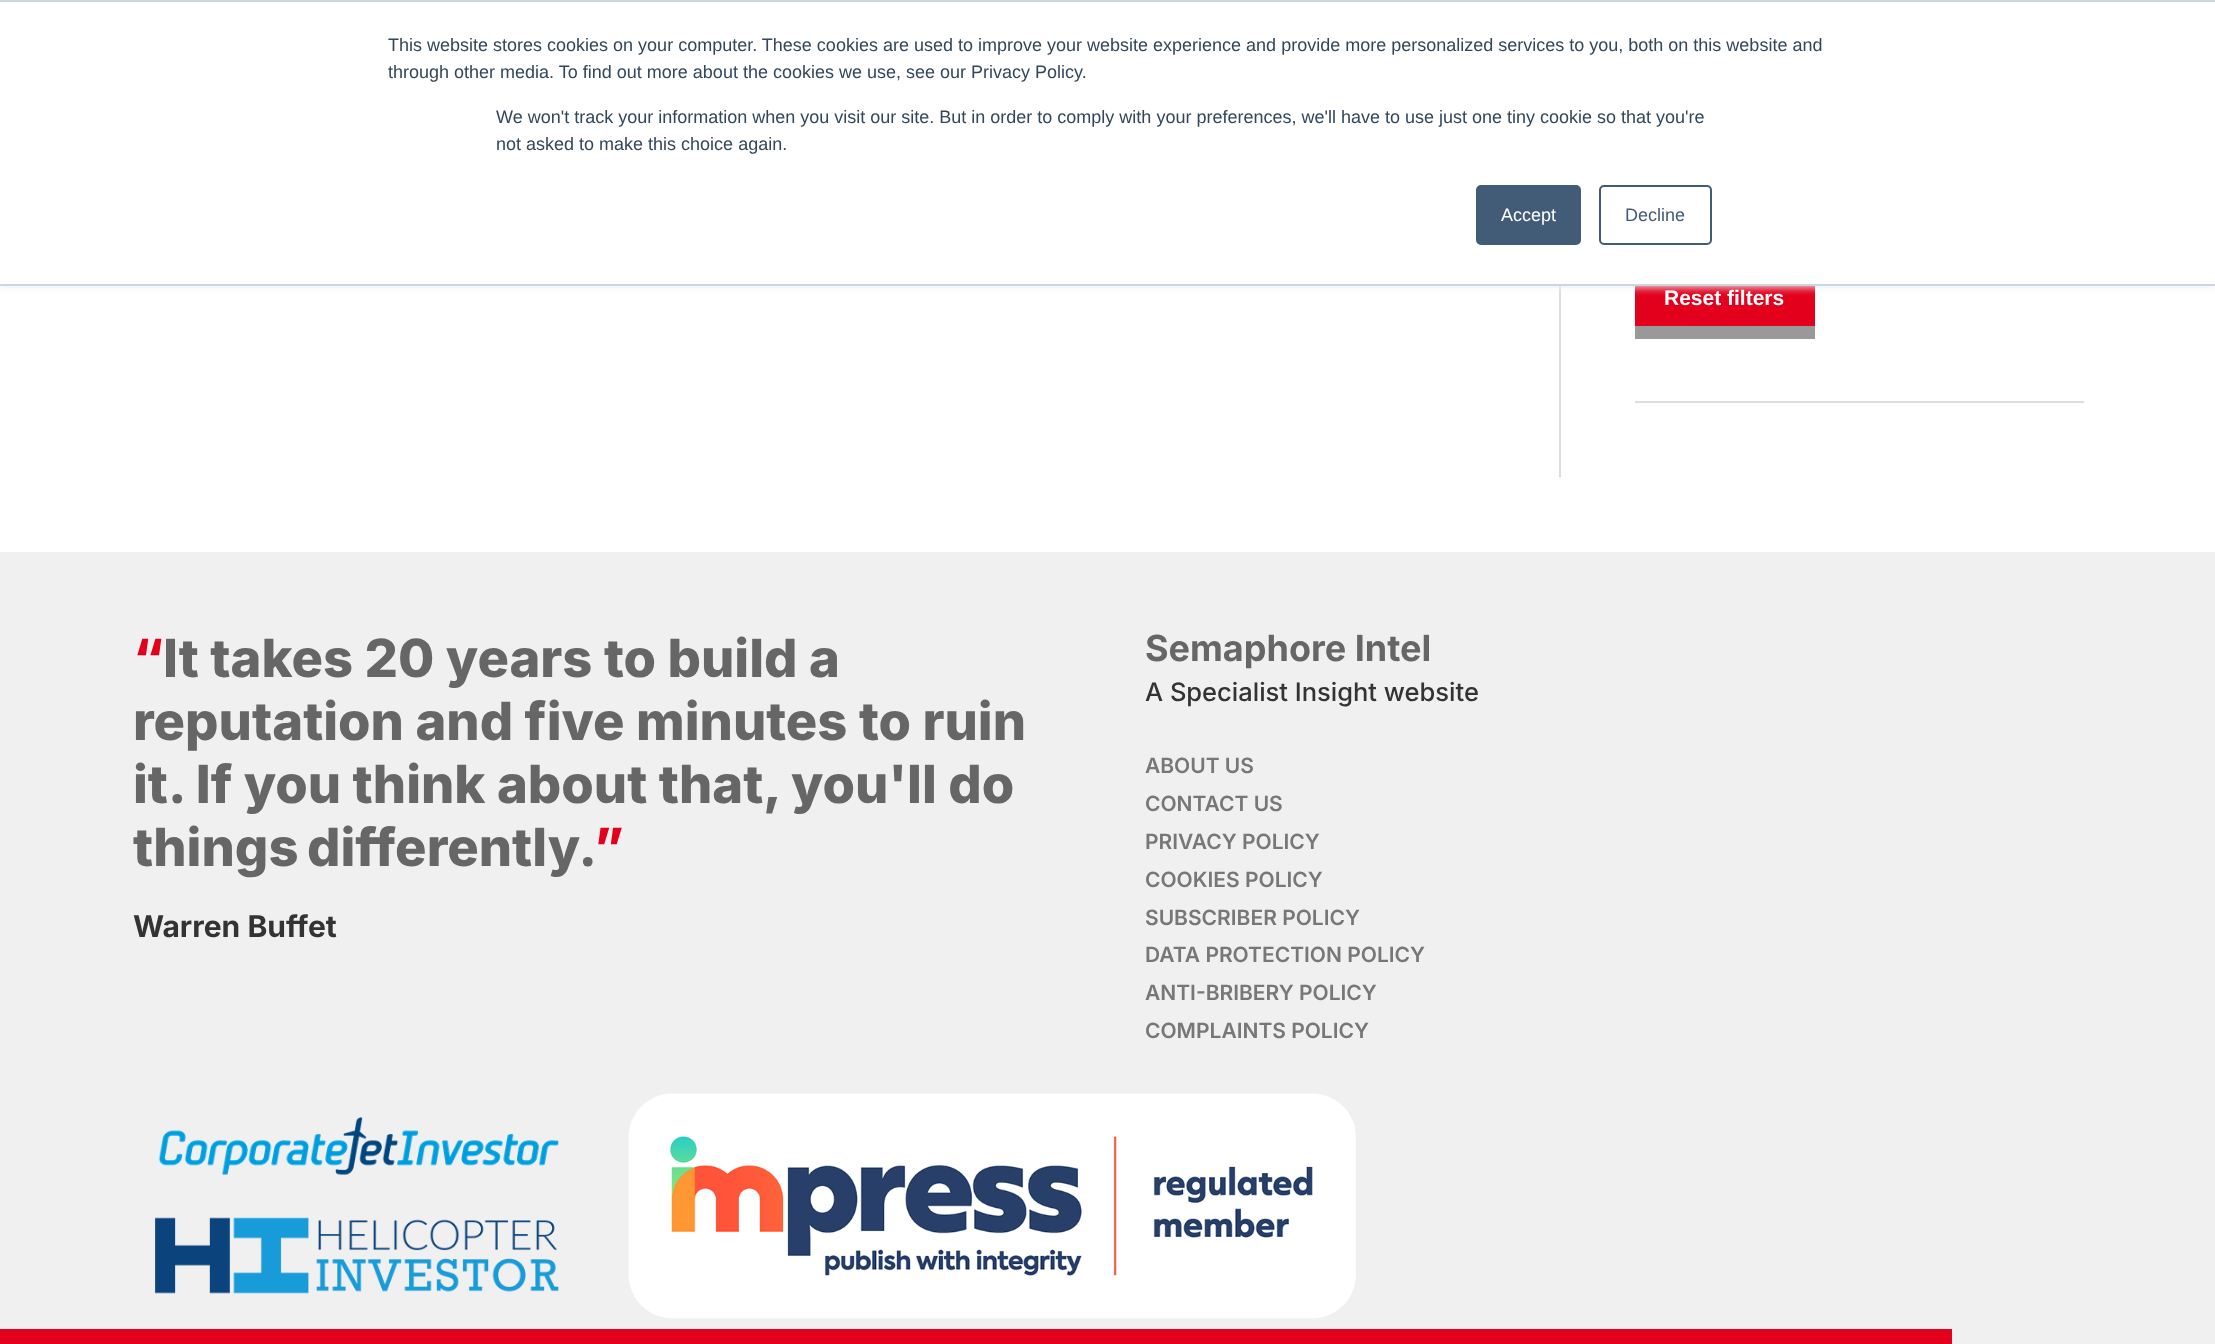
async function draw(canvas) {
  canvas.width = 2215
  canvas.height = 1344
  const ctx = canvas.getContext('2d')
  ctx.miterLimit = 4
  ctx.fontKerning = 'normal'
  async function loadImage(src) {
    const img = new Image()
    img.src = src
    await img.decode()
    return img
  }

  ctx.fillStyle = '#fff'
  ctx.fillRect(0, 0, 2215, 1344)
  ctx.fillStyle = '#ddd'
  ctx.fillRect(1559, 286, 2, 191)
  ctx.fillStyle = '#e3001c'
  ctx.fillRect(1635, 286, 180, 40)
  ctx.fillStyle = '#eaf0f6'
  ctx.filter = 'blur(4px)'
  ctx.beginPath()
  ctx.rect(0, 2, 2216, 285)
  ctx.fill()
  ctx.filter = 'none'
  ctx.fillStyle = '#fff'
  ctx.fillRect(0, 2, 2215, 282)
  ctx.fillStyle = '#cbd6e2'
  ctx.fillRect(0, 0, 2215, 2)
  ctx.fillRect(0, 284, 2215, 2)
  ctx.font = '18px Liberation Sans'
  ctx.fillStyle = '#33475b'
  ctx.fillText('This website stores cookies on your computer. These cookies are used to improve your website experience and provide more personalized services to you, both on this website and', 388, 51)
  ctx.fillText('through other media. To find out more about the cookies we use, see our Privacy Policy.', 388, 78)
  ctx.fillText('We won\'t track your information when you visit our site. But in order to comply with your preferences, we\'ll have to use just one tiny cookie so that you\'re', 496, 123)
  ctx.fillText('not asked to make this choice again.', 496, 150)
  ctx.fillStyle = '#425b76'
  ctx.beginPath()
  ctx.roundRect(1477, 186, 103, 58, 4)
  ctx.fill()
  ctx.strokeStyle = '#425b76'
  ctx.lineWidth = 2
  ctx.stroke()
  ctx.fillStyle = '#fff'
  ctx.fillText('Accept', 1501, 221)
  ctx.beginPath()
  ctx.roundRect(1600, 186, 111, 58, 4)
  ctx.stroke()
  ctx.fillStyle = '#425b76'
  ctx.fillText('Decline', 1625, 221)
  ctx.fillStyle = '#ddd'
  ctx.fillRect(1635, 401, 449, 2)
  ctx.fillStyle = '#999'
  ctx.fillRect(1635, 326, 180, 13)
  ctx.font = 'bold 21px Liberation Sans'
  ctx.fillStyle = '#fff'
  ctx.fillText('Reset filters', 1664, 305)
  ctx.fillStyle = '#f0f0f0'
  ctx.fillRect(0, 552, 2215, 792)
  ctx.font = '800 52.5px Inter'
  ctx.fillStyle = '#e3001c'
  ctx.fillText('“', 133, 677)
  ctx.fillStyle = '#666'
  ctx.fillText('It takes 20 years to build a', 163, 677)
  ctx.fillText('reputation and five minutes to ruin', 133, 740)
  ctx.fillText('it. If you think about that, you\'ll do', 133, 803)
  ctx.wordSpacing = '-3px'
  ctx.fillText('things differently.', 133, 866)
  ctx.wordSpacing = '0px'
  ctx.fillStyle = '#e3001c'
  ctx.fillText('”', 594, 866)
  ctx.font = 'bold 30px Inter'
  ctx.fillStyle = '#333'
  ctx.fillText('Warren Buffet', 133, 937)
  ctx.font = 'bold 36px Inter'
  ctx.fillStyle = '#666'
  ctx.fillText('Semaphore Intel', 1145, 661)
  ctx.font = '500 25.5px Inter'
  ctx.fillStyle = '#333'
  ctx.fillText('A Specialist Insight website', 1145, 701)
  ctx.font = '600 21px Inter'
  ctx.fillStyle = '#777'
  ctx.fillText('ABOUT US', 1145, 773)
  ctx.fillText('CONTACT US', 1145, 811)
  ctx.fillText('PRIVACY POLICY', 1145, 849)
  ctx.fillText('COOKIES POLICY', 1145, 887)
  ctx.fillText('SUBSCRIBER POLICY', 1145, 925)
  ctx.fillText('DATA PROTECTION POLICY', 1145, 962)
  ctx.fillText('ANTI-BRIBERY POLICY', 1145, 1000)
  ctx.fillText('COMPLAINTS POLICY', 1145, 1038)
  ctx.drawImage(await loadImage('image0.png'), 155, 1117, 404, 177)
  ctx.drawImage(await loadImage('image1.png'), 628, 1093, 728, 226)
  ctx.fillStyle = '#e3001c'
  ctx.fillRect(0, 1329, 1952, 15)
}

draw(document.querySelector('canvas'))
